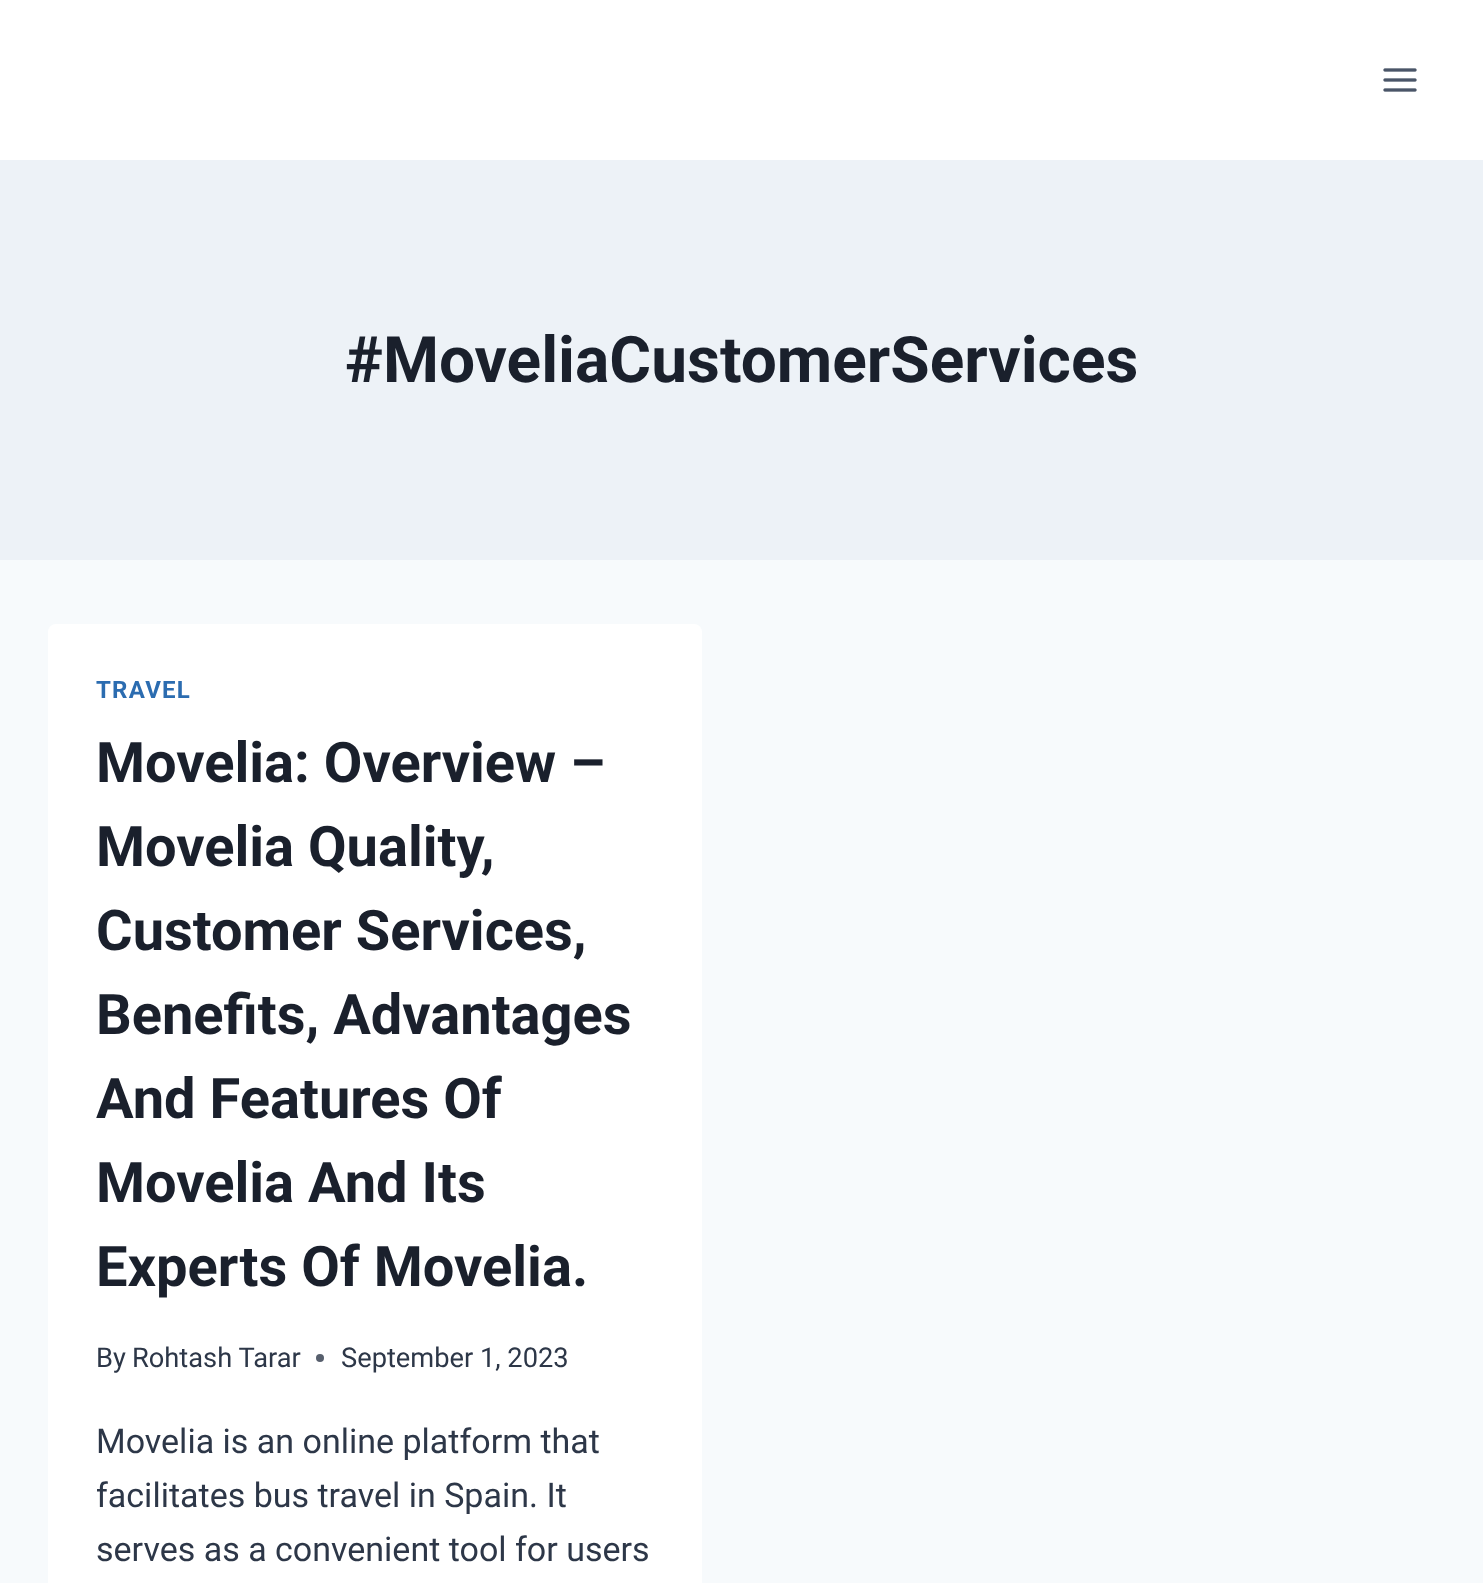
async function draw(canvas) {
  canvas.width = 1483
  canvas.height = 1583
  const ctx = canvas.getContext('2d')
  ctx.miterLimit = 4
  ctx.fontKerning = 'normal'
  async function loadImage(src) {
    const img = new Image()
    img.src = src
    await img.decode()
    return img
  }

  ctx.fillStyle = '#f7fafc'
  ctx.fillRect(0, 0, 1483, 1583)
  ctx.fillStyle = '#fff'
  ctx.fillRect(0, 0, 1483, 160)
  ctx.drawImage(await loadImage('image0.png'), 1383, 68, 34, 24)
  ctx.fillStyle = '#edf2f7'
  ctx.fillRect(0, 160, 1483, 400)
  ctx.font = 'bold 64px Roboto'
  ctx.fillStyle = '#1a202c'
  ctx.fillText('#MoveliaCustomerServices', 345, 382)
  ctx.fillStyle = '#fff'
  ctx.beginPath()
  ctx.roundRect(48, 624, 654, 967, 8)
  ctx.fill()
  ctx.letterSpacing = '1.25px'
  ctx.font = 'bold 24px Roboto'
  ctx.fillStyle = '#2b6cb0'
  ctx.fillText('TRAVEL', 96, 698)
  ctx.letterSpacing = '0px'
  ctx.font = 'bold 56px Roboto'
  ctx.fillStyle = '#1a202c'
  ctx.fillText('Movelia: Overview –', 96, 782)
  ctx.fillText('Movelia Quality,', 96, 866)
  ctx.fillText('Customer Services,', 96, 950)
  ctx.fillText('Benefits, Advantages', 96, 1034)
  ctx.fillText('And Features Of', 96, 1118)
  ctx.fillText('Movelia And Its', 96, 1202)
  ctx.fillText('Experts Of Movelia.', 96, 1286)
  ctx.font = '27.25px Roboto'
  ctx.fillStyle = '#2d3748'
  ctx.fillText('By', 96, 1367)
  ctx.fillText('Rohtash Tarar', 132, 1367)
  ctx.fillStyle = '#575f6d'
  ctx.beginPath()
  ctx.arc(320, 1358, 4, 0, 2 * Math.PI)
  ctx.fill()
  ctx.fillStyle = '#2d3748'
  ctx.fillText('September 1, 2023', 341, 1367)
  ctx.font = '34px Roboto'
  ctx.fillText('Movelia is an online platform that', 96, 1453)
  ctx.fillText('facilitates bus travel in Spain. It', 96, 1507)
  ctx.fillText('serves as a convenient tool for users', 96, 1561)
}

draw(document.querySelector('canvas'))
